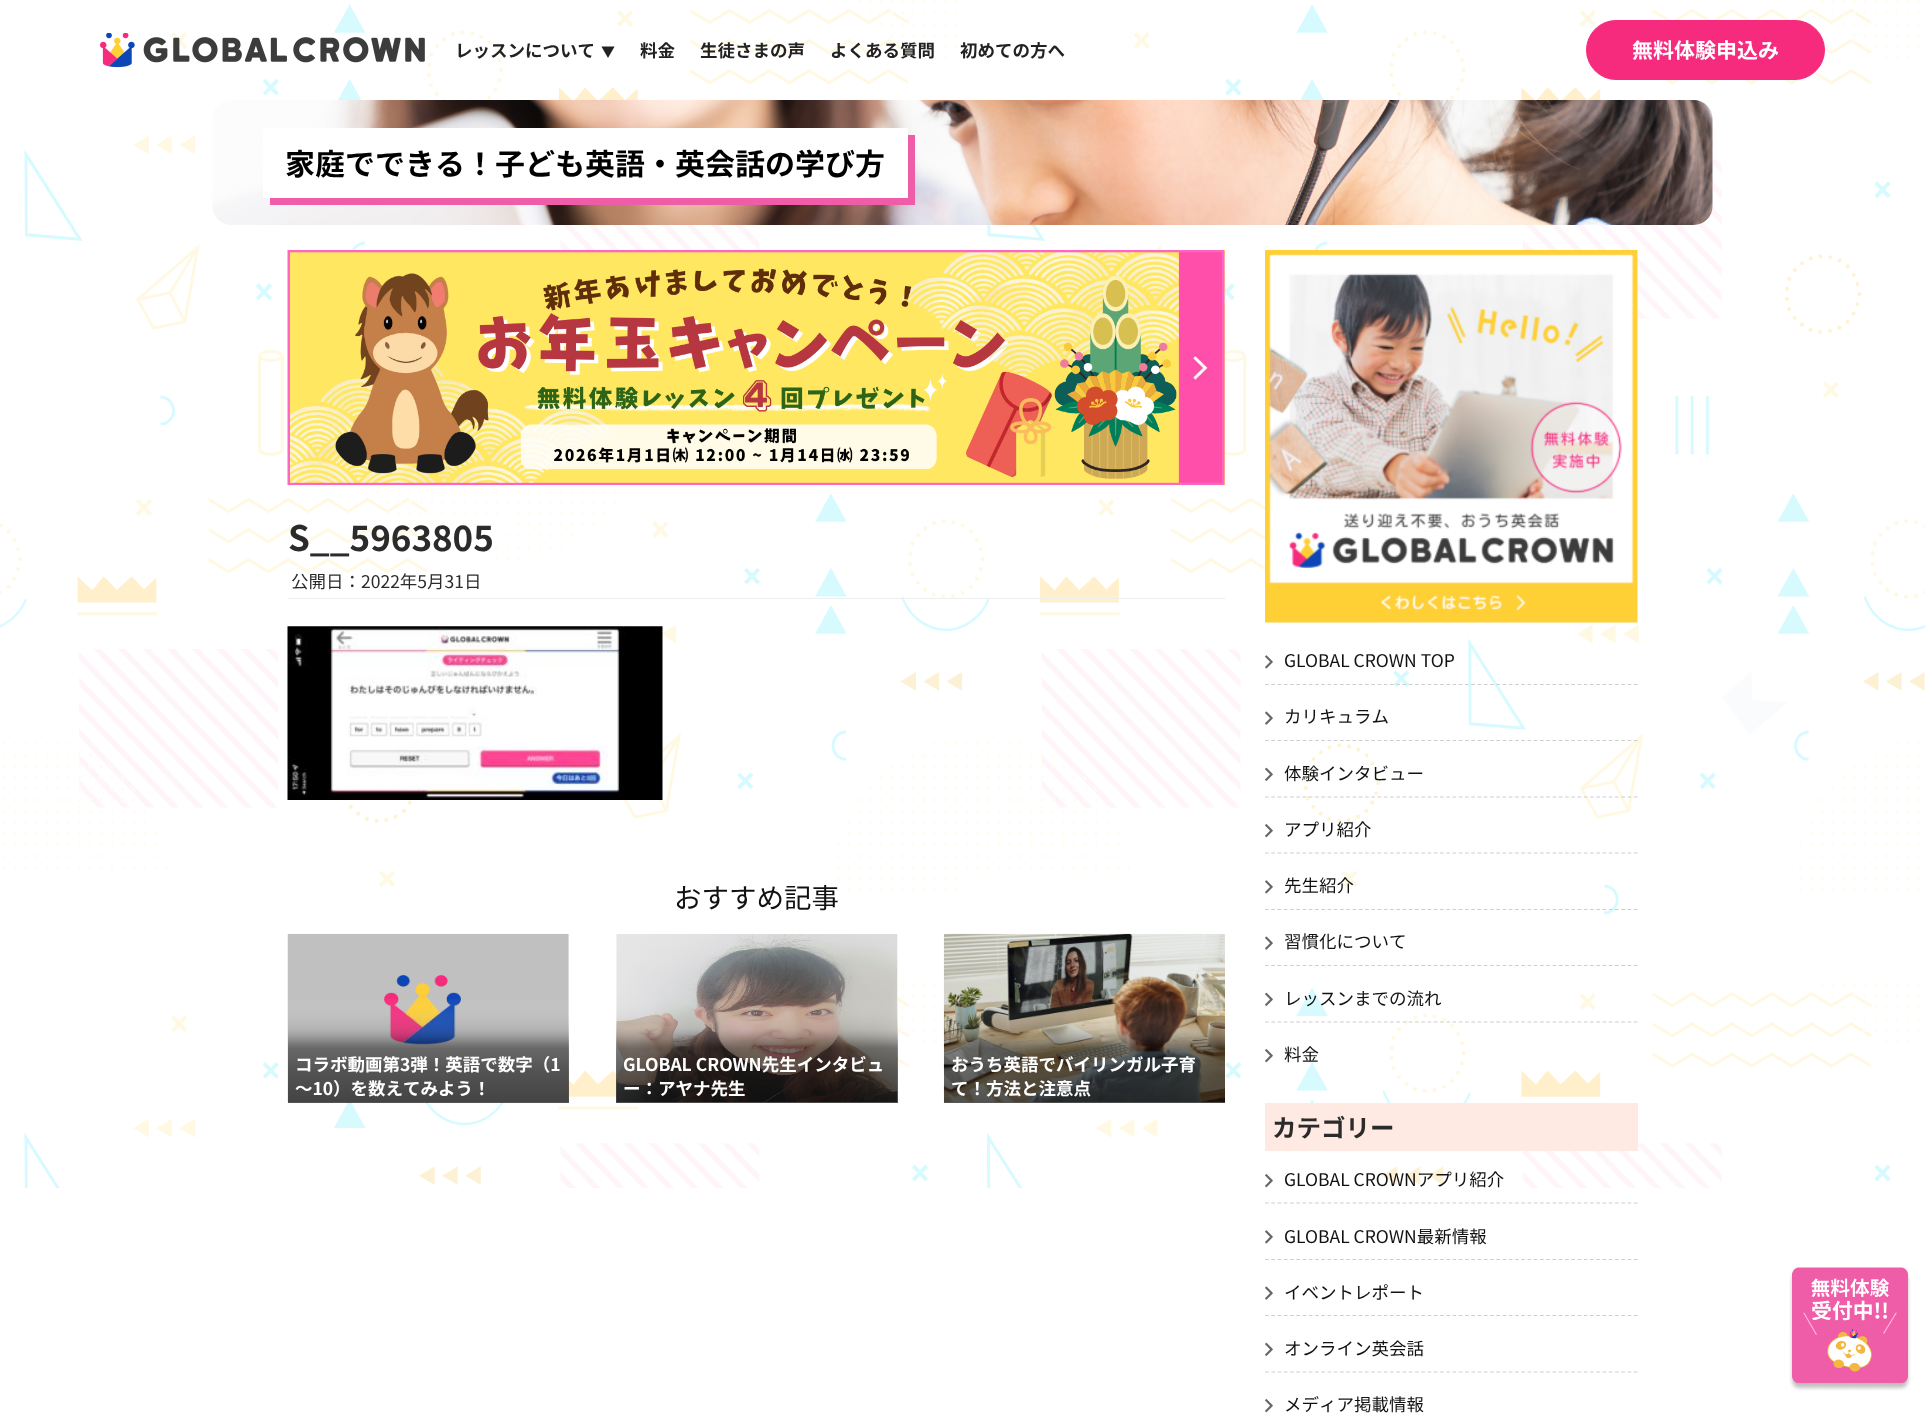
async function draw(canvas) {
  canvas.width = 1925
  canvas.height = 1422
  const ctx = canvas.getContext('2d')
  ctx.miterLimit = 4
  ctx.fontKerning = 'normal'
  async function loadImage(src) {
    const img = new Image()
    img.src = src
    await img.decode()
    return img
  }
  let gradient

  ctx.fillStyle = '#fff'
  ctx.fillRect(0, 0, 1925, 1422)
  ctx.drawImage(await loadImage('image0.png'), 0, 0, 1925, 1188)
  ctx.drawImage(await loadImage('image1.png'), 100, 33, 325, 35)
  ctx.font = 'bold 17.5px Noto Sans JP'
  ctx.fillStyle = '#222'
  ctx.fillText('レッスンについて', 455, 57)
  ctx.font = 'bold 14px Noto Sans JP'
  ctx.fillText('▼', 601, 57)
  ctx.font = 'bold 17.5px Noto Sans JP'
  ctx.fillText('料金', 640, 57)
  ctx.fillText('生徒さまの声', 700, 57)
  ctx.fillText('よくある質問', 830, 57)
  ctx.fillText('初めての方へ', 960, 57)
  ctx.fillStyle = '#f72b7e'
  ctx.beginPath()
  ctx.roundRect(1586.5, 20.5, 238, 59, 29.5)
  ctx.fill()
  ctx.strokeStyle = '#f72b7e'
  ctx.stroke()
  ctx.font = 'bold 21px Noto Sans JP'
  ctx.fillStyle = '#fff'
  ctx.fillText('無料体験申込み', 1632, 58)
  ctx.drawImage(await loadImage('image2.png'), 212, 100, 1501, 125)
  ctx.fillStyle = '#ef5da8'
  ctx.beginPath()
  ctx.moveTo(270, 198)
  ctx.lineTo(270, 205)
  ctx.lineTo(915, 205)
  ctx.lineTo(915, 135)
  ctx.lineTo(908, 135)
  ctx.lineTo(908, 198)
  ctx.closePath()
  ctx.fill()
  ctx.fillStyle = '#fff'
  ctx.fillRect(263, 128, 645, 70)
  ctx.font = 'bold 30px Noto Sans JP'
  ctx.fillStyle = '#000'
  ctx.fillText('家庭でできる！子ども英語・英会話の学び方', 285, 175)
  ctx.drawImage(await loadImage('image3.png'), 287, 250, 938, 235)
  ctx.fillStyle = '#eee'
  ctx.fillRect(288, 598, 937, 1)
  ctx.font = 'bold 35px Noto Sans JP'
  ctx.fillStyle = '#2b2b2b'
  ctx.fillText('S__5963805', 288, 551)
  ctx.font = '17.5px Noto Sans JP'
  ctx.fillText('公開日：2022年5月31日', 291, 588)
  ctx.drawImage(await loadImage('image4.png'), 287, 626, 376, 174)
  ctx.font = '27.5px Noto Sans JP'
  ctx.fillStyle = '#111'
  ctx.fillText('おすすめ記事', 674, 908)
  ctx.drawImage(await loadImage('image5.png'), 287, 933, 282, 170)
  gradient = ctx.createLinearGradient(428, 994, 428, 1103)
  gradient.addColorStop(0, '#f5f5f500')
  gradient.addColorStop(0.04, '#f5f5f505')
  gradient.addColorStop(0.11, '#dfdfdf0f')
  gradient.addColorStop(0.15, '#cfcfcf14')
  gradient.addColorStop(0.19, '#bfbfbf1c')
  gradient.addColorStop(0.32, '#80808033')
  gradient.addColorStop(0.37, '#5a5a5a47')
  gradient.addColorStop(0.43, '#2828285e')
  gradient.addColorStop(0.47, '#0b0b0b6b')
  gradient.addColorStop(0.5, '#00000075')
  gradient.addColorStop(0.71, '#00000091')
  gradient.addColorStop(1, '#000000a6')
  ctx.fillStyle = gradient
  ctx.fillRect(288, 999, 281, 104)
  ctx.font = 'bold 17.5px Noto Sans JP'
  ctx.fillStyle = '#fff'
  ctx.fillText('コラボ動画第3弾！英語で数字（1', 295, 1071)
  ctx.fillText('～10）を数えてみよう！', 295, 1095)
  ctx.drawImage(await loadImage('image6.png'), 616, 934, 282, 169)
  gradient = ctx.createLinearGradient(757, 994, 757, 1103)
  gradient.addColorStop(0, '#f5f5f500')
  gradient.addColorStop(0.04, '#f5f5f505')
  gradient.addColorStop(0.11, '#dfdfdf0f')
  gradient.addColorStop(0.15, '#cfcfcf14')
  gradient.addColorStop(0.19, '#bfbfbf1c')
  gradient.addColorStop(0.32, '#80808033')
  gradient.addColorStop(0.37, '#5a5a5a47')
  gradient.addColorStop(0.43, '#2828285e')
  gradient.addColorStop(0.47, '#0b0b0b6b')
  gradient.addColorStop(0.5, '#00000075')
  gradient.addColorStop(0.71, '#00000091')
  gradient.addColorStop(1, '#000000a6')
  ctx.fillStyle = gradient
  ctx.fillRect(616, 999, 282, 104)
  ctx.fillStyle = '#fff'
  ctx.fillText('GLOBAL CROWN先生インタビュ', 623, 1071)
  ctx.fillText('ー：アヤナ先生', 623, 1095)
  ctx.drawImage(await loadImage('image7.png'), 943, 933, 282, 170)
  gradient = ctx.createLinearGradient(1084, 994, 1084, 1103)
  gradient.addColorStop(0, '#f5f5f500')
  gradient.addColorStop(0.04, '#f5f5f505')
  gradient.addColorStop(0.11, '#dfdfdf0f')
  gradient.addColorStop(0.15, '#cfcfcf14')
  gradient.addColorStop(0.19, '#bfbfbf1c')
  gradient.addColorStop(0.32, '#80808033')
  gradient.addColorStop(0.37, '#5a5a5a47')
  gradient.addColorStop(0.43, '#2828285e')
  gradient.addColorStop(0.47, '#0b0b0b6b')
  gradient.addColorStop(0.5, '#00000075')
  gradient.addColorStop(0.71, '#00000091')
  gradient.addColorStop(1, '#000000a6')
  ctx.fillStyle = gradient
  ctx.fillRect(944, 999, 281, 104)
  ctx.fillStyle = '#fff'
  ctx.fillText('おうち英語でバイリンガル子育', 951, 1071)
  ctx.fillText('て！方法と注意点', 951, 1095)
  ctx.drawImage(await loadImage('image8.png'), 1265, 250, 373, 373)
  ctx.beginPath()
  ctx.moveTo(1265, 684.5)
  ctx.lineTo(1637.5, 684.5)
  ctx.strokeStyle = '#cecece'
  ctx.lineWidth = 1.2
  ctx.setLineDash([3.75, 2.5])
  ctx.stroke()
  ctx.drawImage(await loadImage('image9.png'), 1265, 655, 8, 14)
  ctx.font = '17.5px Noto Sans JP'
  ctx.fillStyle = '#111'
  ctx.fillText('GLOBAL CROWN TOP', 1284, 667)
  ctx.beginPath()
  ctx.moveTo(1265, 740.5)
  ctx.lineTo(1637.5, 740.5)
  ctx.stroke()
  ctx.drawImage(await loadImage('image10.png'), 1265, 711, 8, 14)
  ctx.fillText('カリキュラム', 1284, 723)
  ctx.beginPath()
  ctx.moveTo(1265, 797)
  ctx.lineTo(1637.5, 797)
  ctx.stroke()
  ctx.drawImage(await loadImage('image11.png'), 1265, 767, 8, 14)
  ctx.fillText('体験インタビュー', 1284, 780)
  ctx.beginPath()
  ctx.moveTo(1265, 853)
  ctx.lineTo(1637.5, 853)
  ctx.stroke()
  ctx.drawImage(await loadImage('image12.png'), 1265, 824, 8, 14)
  ctx.fillText('アプリ紹介', 1284, 836)
  ctx.beginPath()
  ctx.moveTo(1265, 909.5)
  ctx.lineTo(1637.5, 909.5)
  ctx.stroke()
  ctx.drawImage(await loadImage('image9.png'), 1265, 880, 8, 14)
  ctx.fillText('先生紹介', 1284, 892)
  ctx.beginPath()
  ctx.moveTo(1265, 965.5)
  ctx.lineTo(1637.5, 965.5)
  ctx.stroke()
  ctx.drawImage(await loadImage('image10.png'), 1265, 936, 8, 14)
  ctx.fillText('習慣化について', 1284, 948)
  ctx.beginPath()
  ctx.moveTo(1265, 1022)
  ctx.lineTo(1637.5, 1022)
  ctx.stroke()
  ctx.drawImage(await loadImage('image11.png'), 1265, 992, 8, 14)
  ctx.fillText('レッスンまでの流れ', 1284, 1005)
  ctx.drawImage(await loadImage('image12.png'), 1265, 1049, 8, 14)
  ctx.fillText('料金', 1284, 1061)
  ctx.fillStyle = '#feeae3'
  ctx.fillRect(1265, 1103, 373, 48)
  ctx.font = 'bold 24.5px Noto Sans JP'
  ctx.fillStyle = '#2b2b2b'
  ctx.fillText('カテゴリー', 1272, 1137)
  ctx.beginPath()
  ctx.moveTo(1265, 1203)
  ctx.lineTo(1637.5, 1203)
  ctx.stroke()
  ctx.drawImage(await loadImage('image12.png'), 1265, 1174, 8, 14)
  ctx.font = '17.5px Noto Sans JP'
  ctx.fillStyle = '#111'
  ctx.fillText('GLOBAL CROWNアプリ紹介', 1284, 1186)
  ctx.beginPath()
  ctx.moveTo(1265, 1259.5)
  ctx.lineTo(1637.5, 1259.5)
  ctx.stroke()
  ctx.drawImage(await loadImage('image9.png'), 1265, 1230, 8, 14)
  ctx.fillText('GLOBAL CROWN最新情報', 1284, 1243)
  ctx.beginPath()
  ctx.moveTo(1265, 1315.5)
  ctx.lineTo(1637.5, 1315.5)
  ctx.stroke()
  ctx.drawImage(await loadImage('image10.png'), 1265, 1286, 8, 14)
  ctx.fillText('イベントレポート', 1284, 1299)
  ctx.beginPath()
  ctx.moveTo(1265, 1372)
  ctx.lineTo(1637.5, 1372)
  ctx.stroke()
  ctx.drawImage(await loadImage('image11.png'), 1265, 1342, 8, 14)
  ctx.fillText('オンライン英会話', 1284, 1355)
  ctx.drawImage(await loadImage('image12.png'), 1265, 1399, 8, 14)
  ctx.fillText('メディア掲載情報', 1284, 1411)
  ctx.drawImage(await loadImage('image13.png'), 1789, 1267, 122, 124)
}

draw(document.querySelector('canvas'))
